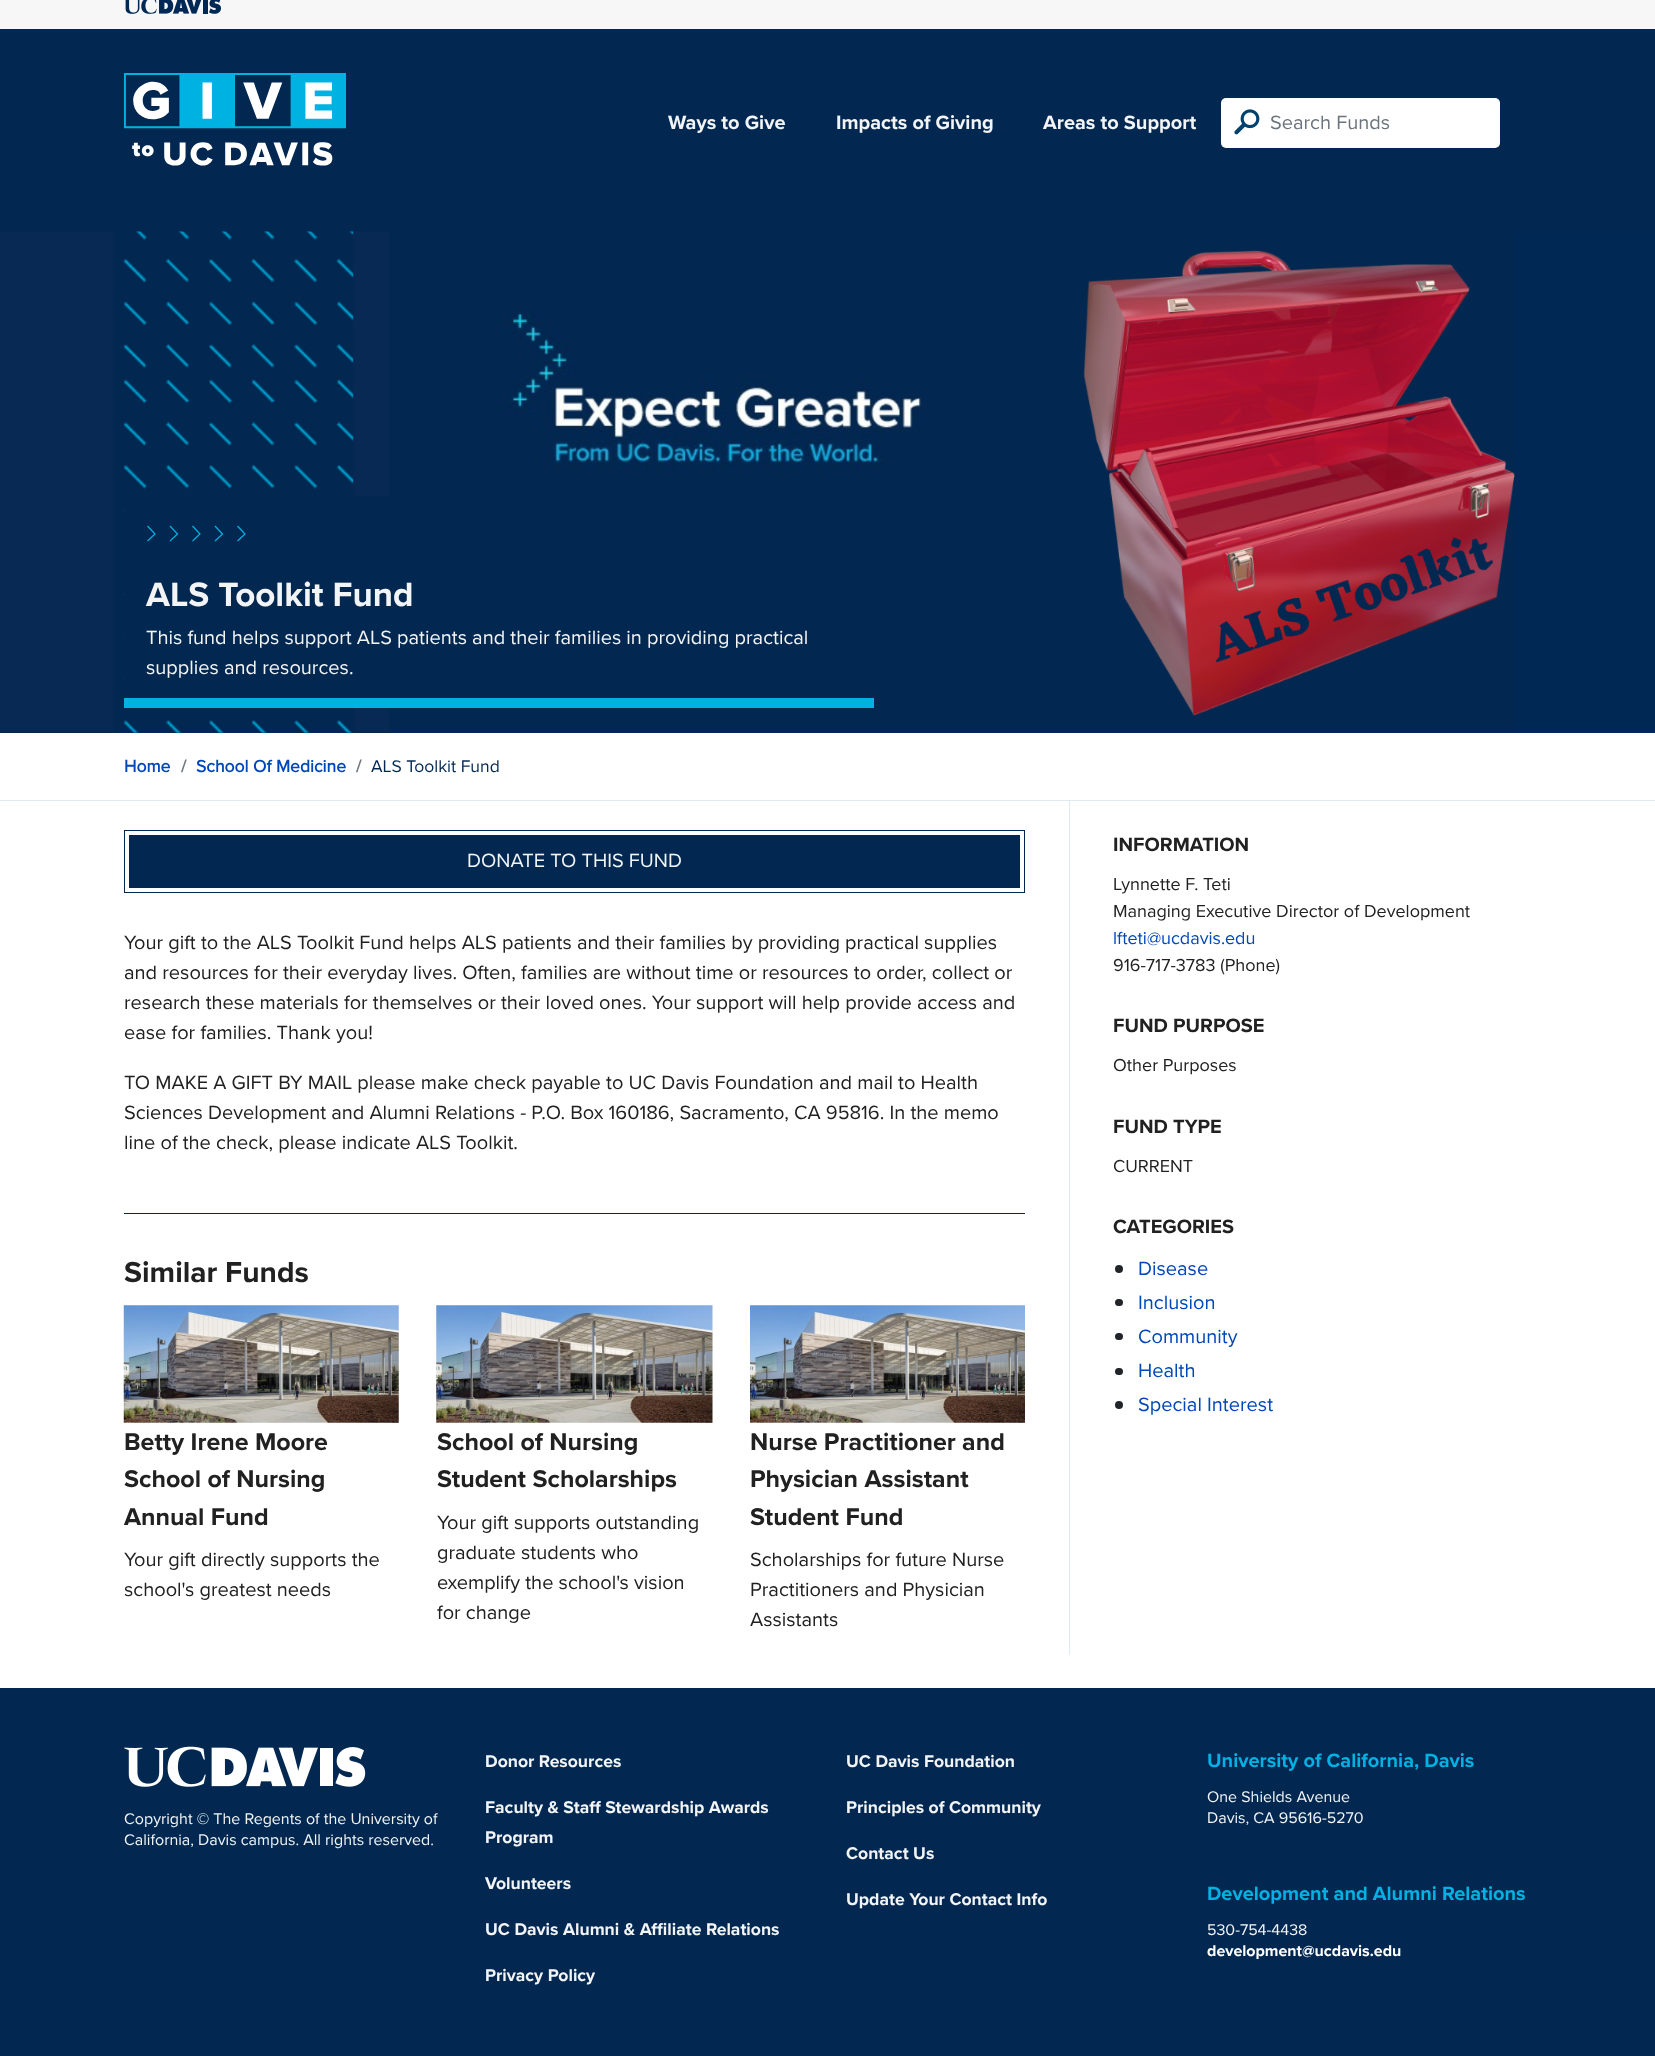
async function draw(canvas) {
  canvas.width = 1655
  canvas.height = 2056
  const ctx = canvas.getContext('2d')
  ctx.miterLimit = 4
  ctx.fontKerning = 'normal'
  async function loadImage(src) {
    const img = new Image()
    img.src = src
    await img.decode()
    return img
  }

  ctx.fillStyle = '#fff'
  ctx.fillRect(0, 0, 1655, 2056)
  ctx.fillStyle = '#f7f7f7'
  ctx.fillRect(0, 0, 1655, 29)
  ctx.drawImage(await loadImage('image0.png'), 125, 0, 96, 14)
  ctx.fillStyle = '#022851'
  ctx.fillRect(0, 29, 1655, 202)
  ctx.drawImage(await loadImage('image1.png'), 124, 73, 222, 93)
  ctx.font = 'bold 20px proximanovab'
  ctx.fillStyle = '#f2f4f6'
  ctx.fillText('Ways to Give', 668, 129)
  ctx.fillText('Impacts of Giving', 836, 129)
  ctx.fillText('Areas to Support', 1043, 129)
  ctx.fillStyle = '#fff'
  ctx.beginPath()
  ctx.roundRect(1221, 98, 279, 50, 5)
  ctx.fill()
  ctx.drawImage(await loadImage('image2.png'), 1234, 109, 26, 26)
  ctx.font = '20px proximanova'
  ctx.fillStyle = '#6c757d'
  ctx.fillText('Search Funds', 1270, 129)
  ctx.fillStyle = '#002855'
  ctx.fillRect(0, 231, 1655, 502)
  ctx.drawImage(await loadImage('image3.png'), 0, 231, 1515, 502)
  ctx.fillStyle = '#022851'
  ctx.fillRect(124, 496, 265, 202)
  ctx.fillStyle = '#00b2e3'
  ctx.fillRect(124, 698, 750, 10)
  ctx.beginPath()
  ctx.moveTo(170, 541)
  ctx.lineTo(177.5, 534)
  ctx.lineTo(170, 526)
  ctx.moveTo(147.5, 541)
  ctx.lineTo(155, 534)
  ctx.lineTo(147.5, 526)
  ctx.moveTo(192.5, 541)
  ctx.lineTo(200, 534)
  ctx.lineTo(192.5, 526)
  ctx.strokeStyle = '#00b2e3'
  ctx.lineWidth = 1.2
  ctx.stroke()
  ctx.beginPath()
  ctx.moveTo(237.5, 541)
  ctx.lineTo(245, 534)
  ctx.lineTo(237.5, 526)
  ctx.moveTo(215, 541)
  ctx.lineTo(222.5, 534)
  ctx.lineTo(215, 526)
  ctx.stroke()
  ctx.font = 'bold 35px proximanovab'
  ctx.fillStyle = '#f2f4f6'
  ctx.fillText('ALS Toolkit Fund', 146, 606)
  ctx.font = '20px proximanova'
  ctx.fillText('This fund helps support ALS patients and their families in providing practical', 146, 644)
  ctx.fillText('supplies and resources.', 146, 674)
  ctx.fillStyle = '#e1e9f0'
  ctx.fillRect(0, 800, 1655, 1)
  ctx.font = 'bold 17.5px proximanova'
  ctx.fillStyle = '#0047ba'
  ctx.fillText('Home', 124, 772)
  ctx.fillStyle = '#6c757d'
  ctx.fillText('/', 181, 772)
  ctx.fillStyle = '#0047ba'
  ctx.fillText('School Of Medicine', 196, 772)
  ctx.fillStyle = '#6c757d'
  ctx.fillText('/', 356, 772)
  ctx.font = '17.5px proximanova'
  ctx.fillStyle = '#022851'
  ctx.fillText('ALS Toolkit Fund', 371, 772)
  ctx.strokeStyle = '#022851'
  ctx.lineWidth = 1
  ctx.strokeRect(124.5, 830.5, 900, 62)
  ctx.fillRect(129, 835, 891, 53)
  ctx.font = '20px proximanova'
  ctx.fillStyle = '#f2f4f6'
  ctx.fillText('DONATE TO THIS FUND', 467, 867)
  ctx.fillStyle = '#212121'
  ctx.fillText('Your gift to the ALS Toolkit Fund helps ALS patients and their families by providing practical supplies', 124, 949)
  ctx.fillText('and resources for their everyday lives. Often, families are without time or resources to order, collect or', 124, 979)
  ctx.fillText('research these materials for themselves or their loved ones. Your support will help provide access and', 124, 1009)
  ctx.fillText('ease for families. Thank you!', 124, 1039)
  ctx.fillText('TO MAKE A GIFT BY MAIL please make check payable to UC Davis Foundation and mail to Health', 124, 1089)
  ctx.fillText('Sciences Development and Alumni Relations - P.O. Box 160186, Sacramento, CA 95816. In the memo', 124, 1119)
  ctx.fillText('line of the check, please indicate ALS Toolkit.', 124, 1149)
  ctx.fillStyle = '#022851'
  ctx.fillRect(124, 1213, 901, 1)
  ctx.font = 'bold 30px proximanovab'
  ctx.fillStyle = '#212121'
  ctx.fillText('Similar Funds', 124, 1282)
  ctx.drawImage(await loadImage('image4.png'), 123, 1305, 276, 118)
  ctx.font = 'bold 25px proximanovab'
  ctx.fillText('Betty Irene Moore', 124, 1450)
  ctx.fillText('School of Nursing', 124, 1487)
  ctx.fillText('Annual Fund', 124, 1525)
  ctx.font = '20px proximanova'
  ctx.fillText('Your gift directly supports the', 124, 1566)
  ctx.fillText('school\'s greatest needs', 124, 1596)
  ctx.drawImage(await loadImage('image5.png'), 436, 1305, 277, 118)
  ctx.font = 'bold 25px proximanovab'
  ctx.fillText('School of Nursing', 437, 1450)
  ctx.fillText('Student Scholarships', 437, 1487)
  ctx.font = '20px proximanova'
  ctx.fillText('Your gift supports outstanding', 437, 1529)
  ctx.fillText('graduate students who', 437, 1559)
  ctx.fillText('exemplify the school\'s vision', 437, 1589)
  ctx.fillText('for change', 437, 1619)
  ctx.drawImage(await loadImage('image6.png'), 750, 1305, 275, 118)
  ctx.font = 'bold 25px proximanovab'
  ctx.fillText('Nurse Practitioner and', 750, 1450)
  ctx.fillText('Physician Assistant', 750, 1487)
  ctx.fillText('Student Fund', 750, 1525)
  ctx.font = '20px proximanova'
  ctx.fillText('Scholarships for future Nurse', 750, 1566)
  ctx.fillText('Practitioners and Physician', 750, 1596)
  ctx.fillText('Assistants', 750, 1626)
  ctx.fillStyle = '#e1e9f0'
  ctx.fillRect(1069, 801, 1, 854)
  ctx.font = 'bold 20px proximanovab'
  ctx.fillStyle = '#212121'
  ctx.fillText('INFORMATION', 1113, 851)
  ctx.font = '18px proximanova'
  ctx.fillText('Lynnette F. Teti', 1113, 890)
  ctx.fillText('Managing Executive Director of Development', 1113, 917)
  ctx.fillStyle = '#0047ba'
  ctx.fillText('lfteti@ucdavis.edu', 1113, 944)
  ctx.fillStyle = '#212121'
  ctx.fillText('916-717-3783 (Phone)', 1113, 971)
  ctx.font = 'bold 20px proximanovab'
  ctx.fillText('FUND PURPOSE', 1113, 1032)
  ctx.font = '18px proximanova'
  ctx.fillText('Other Purposes', 1113, 1071)
  ctx.font = 'bold 20px proximanovab'
  ctx.fillText('FUND TYPE', 1113, 1133)
  ctx.font = '18px proximanova'
  ctx.fillText('CURRENT', 1113, 1172)
  ctx.font = 'bold 20px proximanovab'
  ctx.fillText('CATEGORIES', 1113, 1233)
  ctx.fillStyle = '#212529'
  ctx.beginPath()
  ctx.arc(1119, 1269, 4, 0, 2 * Math.PI)
  ctx.fill()
  ctx.font = '20px proximanova'
  ctx.fillStyle = '#0047ba'
  ctx.fillText('Disease', 1138, 1275)
  ctx.fillStyle = '#212529'
  ctx.beginPath()
  ctx.roundRect(1115, 1299, 8, 7, 3.5)
  ctx.fill()
  ctx.fillStyle = '#0047ba'
  ctx.fillText('Inclusion', 1138, 1309)
  ctx.fillStyle = '#212529'
  ctx.beginPath()
  ctx.roundRect(1115, 1333, 8, 7, 3.5)
  ctx.fill()
  ctx.fillStyle = '#0047ba'
  ctx.fillText('Community', 1138, 1343)
  ctx.fillStyle = '#212529'
  ctx.beginPath()
  ctx.roundRect(1115, 1368, 8, 7, 3.5)
  ctx.fill()
  ctx.fillStyle = '#0047ba'
  ctx.fillText('Health', 1138, 1377)
  ctx.fillStyle = '#212529'
  ctx.beginPath()
  ctx.arc(1119, 1405, 4, 0, 2 * Math.PI)
  ctx.fill()
  ctx.fillStyle = '#0047ba'
  ctx.fillText('Special Interest', 1138, 1411)
  ctx.fillStyle = '#022851'
  ctx.fillRect(0, 1688, 1655, 368)
  ctx.drawImage(await loadImage('image7.png'), 124, 1746, 242, 41)
  ctx.font = '16px proximanova'
  ctx.fillStyle = '#f2f4f6'
  ctx.fillText('Copyright © The Regents of the University of', 124, 1824)
  ctx.fillText('California, Davis campus. All rights reserved.', 124, 1845)
  ctx.font = 'bold 17.6px proximanovab'
  ctx.fillText('Donor Resources', 485, 1767)
  ctx.fillText('Faculty & Staff Stewardship Awards', 485, 1813)
  ctx.fillText('Program', 485, 1843)
  ctx.fillText('Volunteers', 485, 1889)
  ctx.fillText('UC Davis Alumni & Affiliate Relations', 485, 1935)
  ctx.fillText('Privacy Policy', 485, 1981)
  ctx.fillText('UC Davis Foundation', 846, 1767)
  ctx.fillText('Principles of Community', 846, 1813)
  ctx.fillText('Contact Us', 846, 1859)
  ctx.fillText('Update Your Contact Info', 846, 1905)
  ctx.font = 'bold 20px proximanovab'
  ctx.fillStyle = '#00b2e3'
  ctx.fillText('University of California, Davis', 1207, 1767)
  ctx.font = '16px proximanova'
  ctx.fillStyle = '#f2f4f6'
  ctx.fillText('One Shields Avenue', 1207, 1802)
  ctx.fillText('Davis, CA 95616-5270', 1207, 1823)
  ctx.font = 'bold 20px proximanovab'
  ctx.fillStyle = '#00b2e3'
  ctx.fillText('Development and Alumni Relations', 1207, 1900)
  ctx.font = '16px proximanova'
  ctx.fillStyle = '#f2f4f6'
  ctx.fillText('530-754-4438', 1207, 1935)
  ctx.font = 'bold 16px proximanovab'
  ctx.fillStyle = '#fff'
  ctx.fillText('development@ucdavis.edu', 1207, 1956)
}

draw(document.querySelector('canvas'))
